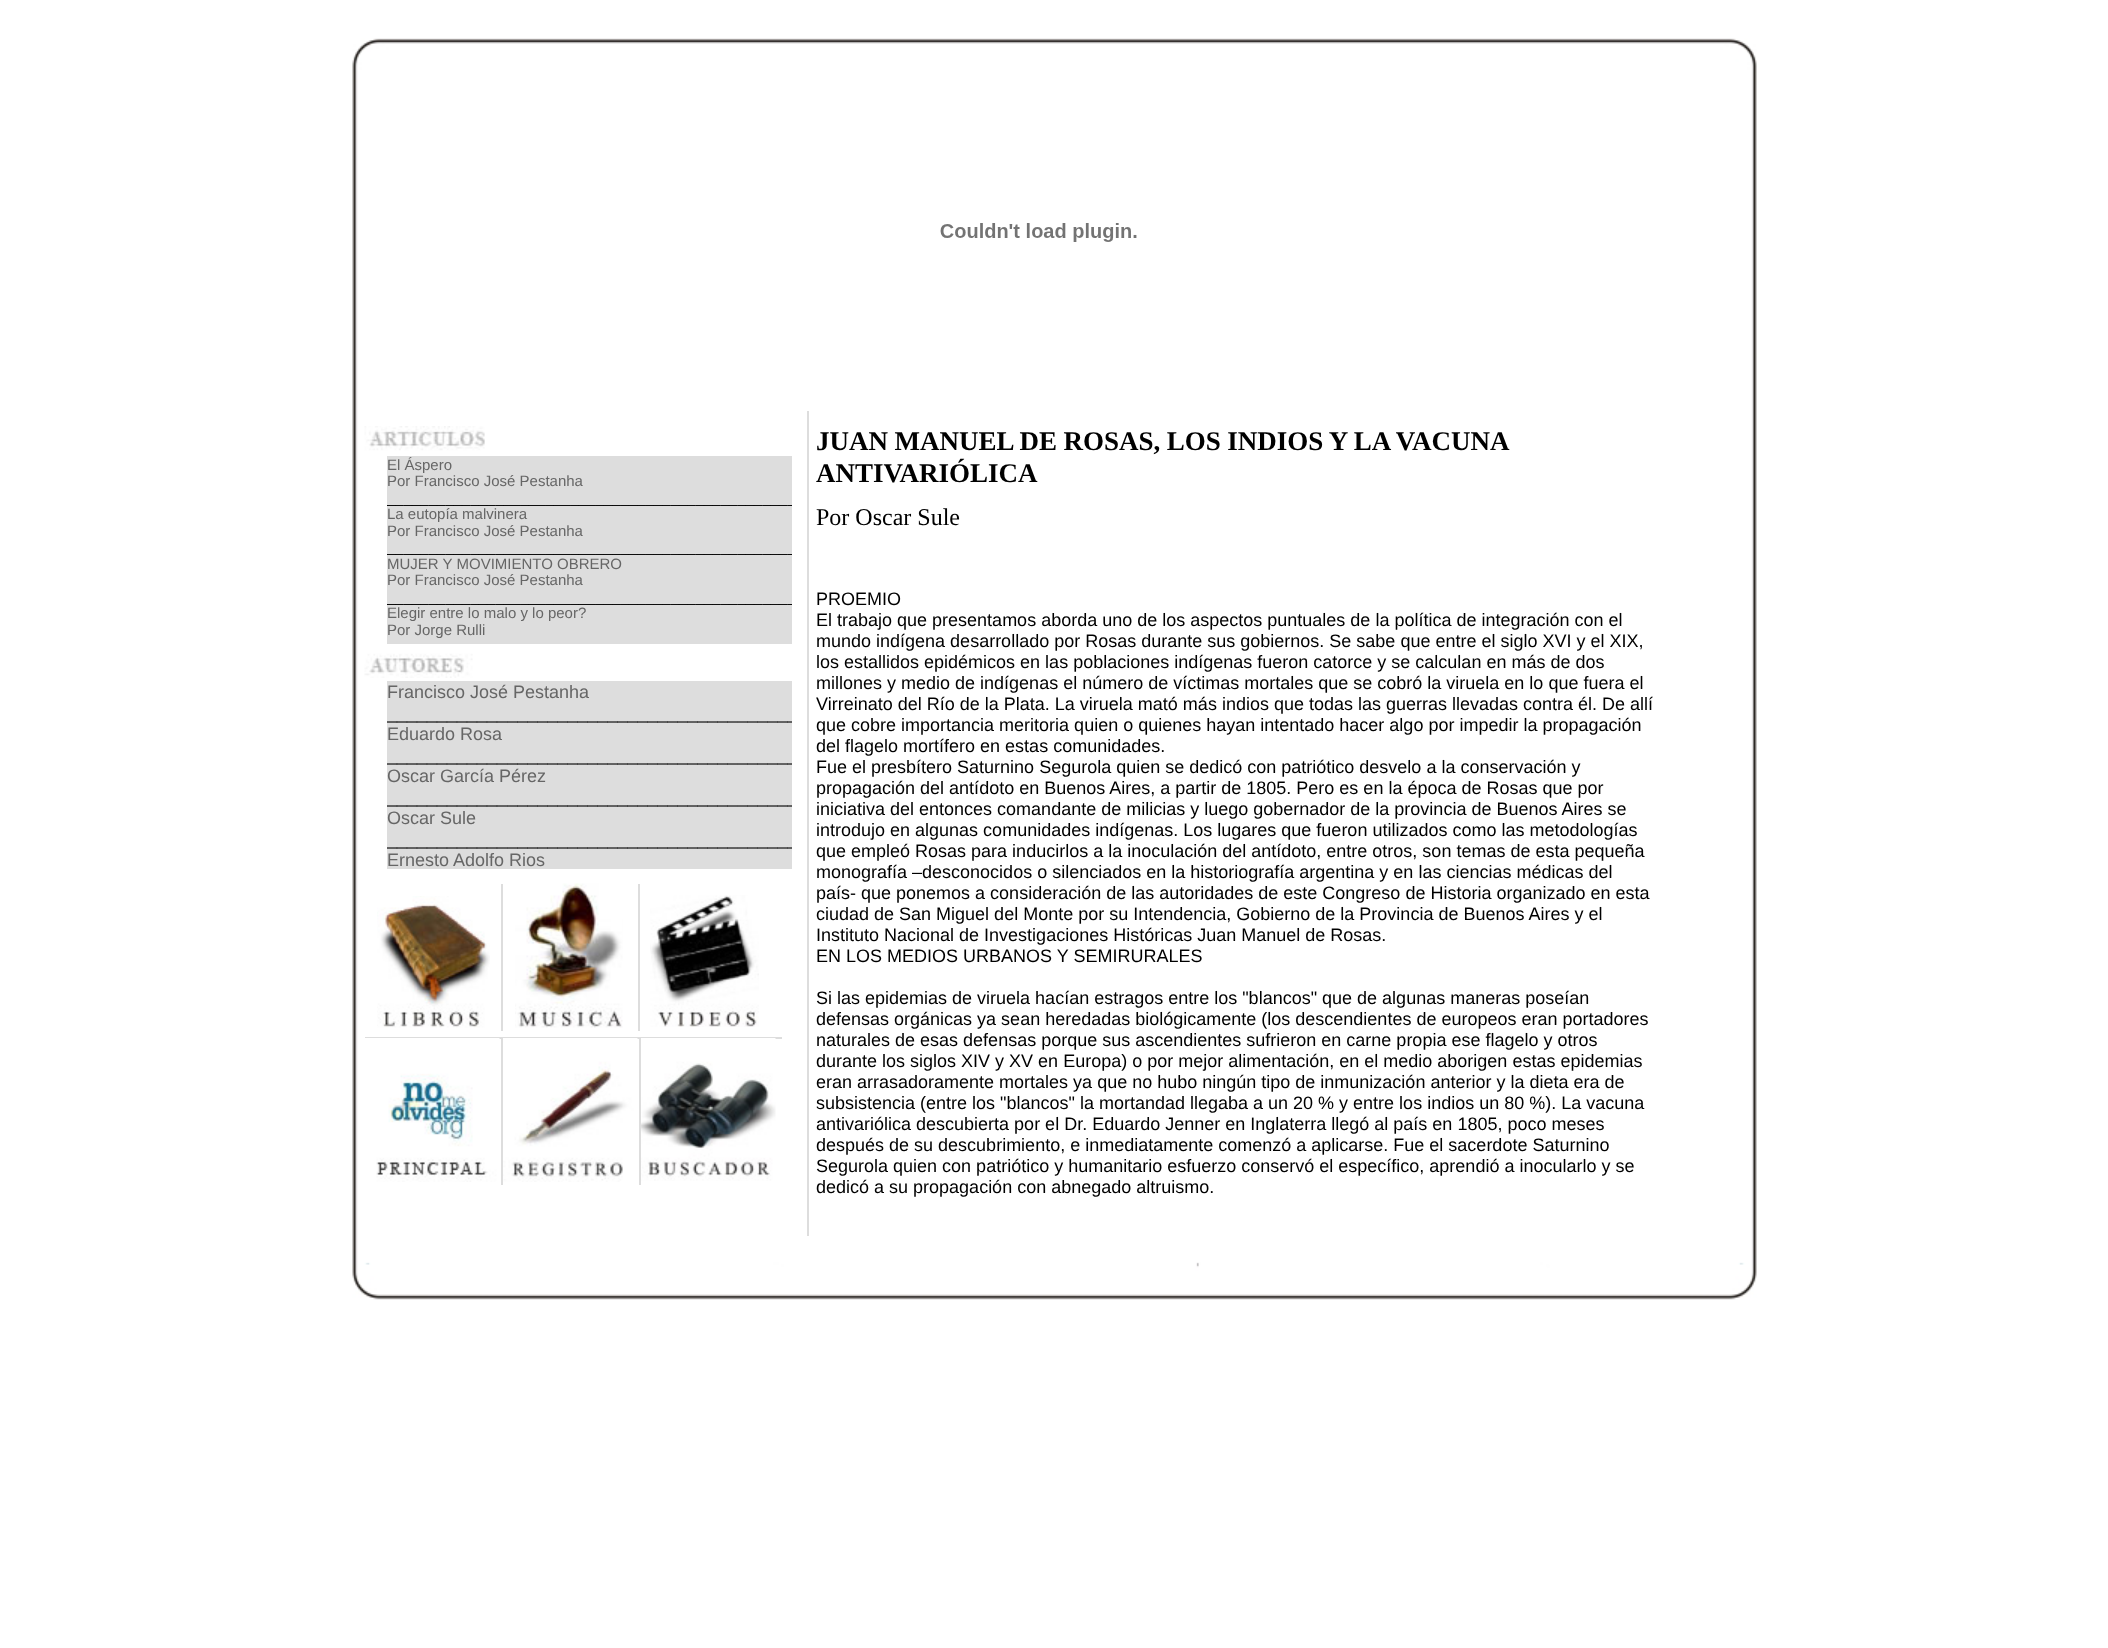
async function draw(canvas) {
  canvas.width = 2108
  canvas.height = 1648
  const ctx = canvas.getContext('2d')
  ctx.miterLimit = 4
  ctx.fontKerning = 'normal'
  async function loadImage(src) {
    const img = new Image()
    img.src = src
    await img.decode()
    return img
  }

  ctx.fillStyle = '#fff'
  ctx.fillRect(0, 0, 2108, 1648)
  ctx.drawImage(await loadImage('image0.png'), 352, 38, 1405, 1262)
  ctx.drawImage(await loadImage('image1.png'), 940, 223, 197, 19)
  ctx.fillStyle = '#ddd'
  ctx.fillRect(807, 411, 2, 825)
  ctx.drawImage(await loadImage('image2.png'), 364, 426, 121, 252)
  ctx.fillRect(387, 456, 405, 188)
  ctx.font = '15px Liberation Sans'
  ctx.fillStyle = '#666'
  ctx.fillText('El Áspero', 387, 470)
  ctx.fillText('Por Francisco José Pestanha', 387, 486)
  ctx.save()
  ctx.beginPath()
  ctx.rect(387, 456, 405, 188)
  ctx.clip()
  ctx.fillStyle = '#000'
  ctx.fillText('_________________________________________________', 387, 503)
  ctx.restore()
  ctx.fillText('La eutopía malvinera', 387, 519)
  ctx.fillText('Por Francisco José Pestanha', 387, 536)
  ctx.save()
  ctx.beginPath()
  ctx.rect(387, 456, 405, 188)
  ctx.clip()
  ctx.fillStyle = '#000'
  ctx.fillText('_________________________________________________', 387, 552)
  ctx.restore()
  ctx.fillText('MUJER Y MOVIMIENTO OBRERO', 387, 569)
  ctx.fillText('Por Francisco José Pestanha', 387, 585)
  ctx.save()
  ctx.beginPath()
  ctx.rect(387, 456, 405, 188)
  ctx.clip()
  ctx.fillStyle = '#000'
  ctx.fillText('_________________________________________________', 387, 602)
  ctx.restore()
  ctx.fillText('Elegir entre lo malo y lo peor?', 387, 618)
  ctx.fillText('Por Jorge Rulli', 387, 635)
  ctx.fillStyle = '#ddd'
  ctx.fillRect(387, 681, 405, 188)
  ctx.font = '18px Liberation Sans'
  ctx.fillStyle = '#666'
  ctx.fillText('Francisco José Pestanha', 387, 698)
  ctx.save()
  ctx.beginPath()
  ctx.rect(387, 681, 405, 188)
  ctx.clip()
  ctx.fillStyle = '#000'
  ctx.fillText('_________________________________________', 387, 719)
  ctx.restore()
  ctx.fillText('Eduardo Rosa', 387, 740)
  ctx.save()
  ctx.beginPath()
  ctx.rect(387, 681, 405, 188)
  ctx.clip()
  ctx.fillStyle = '#000'
  ctx.fillText('_________________________________________', 387, 761)
  ctx.restore()
  ctx.fillText('Oscar García Pérez', 387, 782)
  ctx.save()
  ctx.beginPath()
  ctx.rect(387, 681, 405, 188)
  ctx.clip()
  ctx.fillStyle = '#000'
  ctx.fillText('_________________________________________', 387, 803)
  ctx.restore()
  ctx.fillText('Oscar Sule', 387, 824)
  ctx.save()
  ctx.beginPath()
  ctx.rect(387, 681, 405, 188)
  ctx.clip()
  ctx.fillStyle = '#000'
  ctx.fillText('_________________________________________', 387, 845)
  ctx.restore()
  ctx.fillText('Ernesto Adolfo Rios', 387, 866)
  ctx.drawImage(await loadImage('image3.png'), 377, 896, 113, 132)
  ctx.drawImage(await loadImage('image4.png'), 515, 883, 108, 145)
  ctx.fillStyle = '#ddd'
  ctx.fillRect(501, 884, 2, 147)
  ctx.drawImage(await loadImage('image5.png'), 650, 895, 109, 132)
  ctx.fillRect(638, 884, 2, 147)
  ctx.fillRect(365, 1037, 417, 2)
  ctx.drawImage(await loadImage('image6.png'), 365, 1038, 135, 144)
  ctx.drawImage(await loadImage('image7.png'), 503, 1038, 135, 144)
  ctx.fillRect(501, 1038, 2, 147)
  ctx.drawImage(await loadImage('image8.png'), 641, 1038, 135, 143)
  ctx.fillRect(639, 1038, 2, 147)
  ctx.wordSpacing = '-0.25px'
  ctx.font = 'bold 27px Liberation Serif'
  ctx.fillStyle = '#000'
  ctx.fillText('JUAN MANUEL DE ROSAS, LOS INDIOS Y LA VACUNA', 816, 450)
  ctx.wordSpacing = '0px'
  ctx.fillText('ANTIVARIÓLICA', 816, 482)
  ctx.font = '24px Liberation Serif'
  ctx.fillText('Por Oscar Sule', 816, 525)
  ctx.font = '18px Liberation Sans'
  ctx.fillText('PROEMIO', 816, 605)
  ctx.fillText('El trabajo que presentamos aborda uno de los aspectos puntuales de la política de integración con el', 816, 626)
  ctx.fillText('mundo indígena desarrollado por Rosas durante sus gobiernos. Se sabe que entre el siglo XVI y el XIX,', 816, 647)
  ctx.fillText('los estallidos epidémicos en las poblaciones indígenas fueron catorce y se calculan en más de dos', 816, 668)
  ctx.fillText('millones y medio de indígenas el número de víctimas mortales que se cobró la viruela en lo que fuera el', 816, 689)
  ctx.fillText('Virreinato del Río de la Plata. La viruela mató más indios que todas las guerras llevadas contra él. De allí', 816, 710)
  ctx.fillText('que cobre importancia meritoria quien o quienes hayan intentado hacer algo por impedir la propagación', 816, 731)
  ctx.fillText('del flagelo mortífero en estas comunidades.', 816, 752)
  ctx.fillText('Fue el presbítero Saturnino Segurola quien se dedicó con patriótico desvelo a la conservación y', 816, 773)
  ctx.fillText('propagación del antídoto en Buenos Aires, a partir de 1805. Pero es en la época de Rosas que por', 816, 794)
  ctx.fillText('iniciativa del entonces comandante de milicias y luego gobernador de la provincia de Buenos Aires se', 816, 815)
  ctx.fillText('introdujo en algunas comunidades indígenas. Los lugares que fueron utilizados como las metodologías', 816, 836)
  ctx.fillText('que empleó Rosas para inducirlos a la inoculación del antídoto, entre otros, son temas de esta pequeña', 816, 857)
  ctx.fillText('monografía –desconocidos o silenciados en la historiografía argentina y en las ciencias médicas del', 816, 878)
  ctx.fillText('país- que ponemos a consideración de las autoridades de este Congreso de Historia organizado en esta', 816, 899)
  ctx.fillText('ciudad de San Miguel del Monte por su Intendencia, Gobierno de la Provincia de Buenos Aires y el', 816, 920)
  ctx.fillText('Instituto Nacional de Investigaciones Históricas Juan Manuel de Rosas.', 816, 941)
  ctx.fillText('EN LOS MEDIOS URBANOS Y SEMIRURALES', 816, 962)
  ctx.fillText('Si las epidemias de viruela hacían estragos entre los "blancos" que de algunas maneras poseían', 816, 1004)
  ctx.fillText('defensas orgánicas ya sean heredadas biológicamente (los descendientes de europeos eran portadores', 816, 1025)
  ctx.fillText('naturales de esas defensas porque sus ascendientes sufrieron en carne propia ese flagelo y otros', 816, 1046)
  ctx.fillText('durante los siglos XIV y XV en Europa) o por mejor alimentación, en el medio aborigen estas epidemias', 816, 1067)
  ctx.fillText('eran arrasadoramente mortales ya que no hubo ningún tipo de inmunización anterior y la dieta era de', 816, 1088)
  ctx.fillText('subsistencia (entre los "blancos" la mortandad llegaba a un 20 % y entre los indios un 80 %). La vacuna', 816, 1109)
  ctx.fillText('antivariólica descubierta por el Dr. Eduardo Jenner en Inglaterra llegó al país en 1805, poco meses', 816, 1130)
  ctx.fillText('después de su descubrimiento, e inmediatamente comenzó a aplicarse. Fue el sacerdote Saturnino', 816, 1151)
  ctx.fillText('Segurola quien con patriótico y humanitario esfuerzo conservó el específico, aprendió a inocularlo y se', 816, 1172)
  ctx.fillText('dedicó a su propagación con abnegado altruismo.', 816, 1193)
}

draw(document.querySelector('canvas'))
